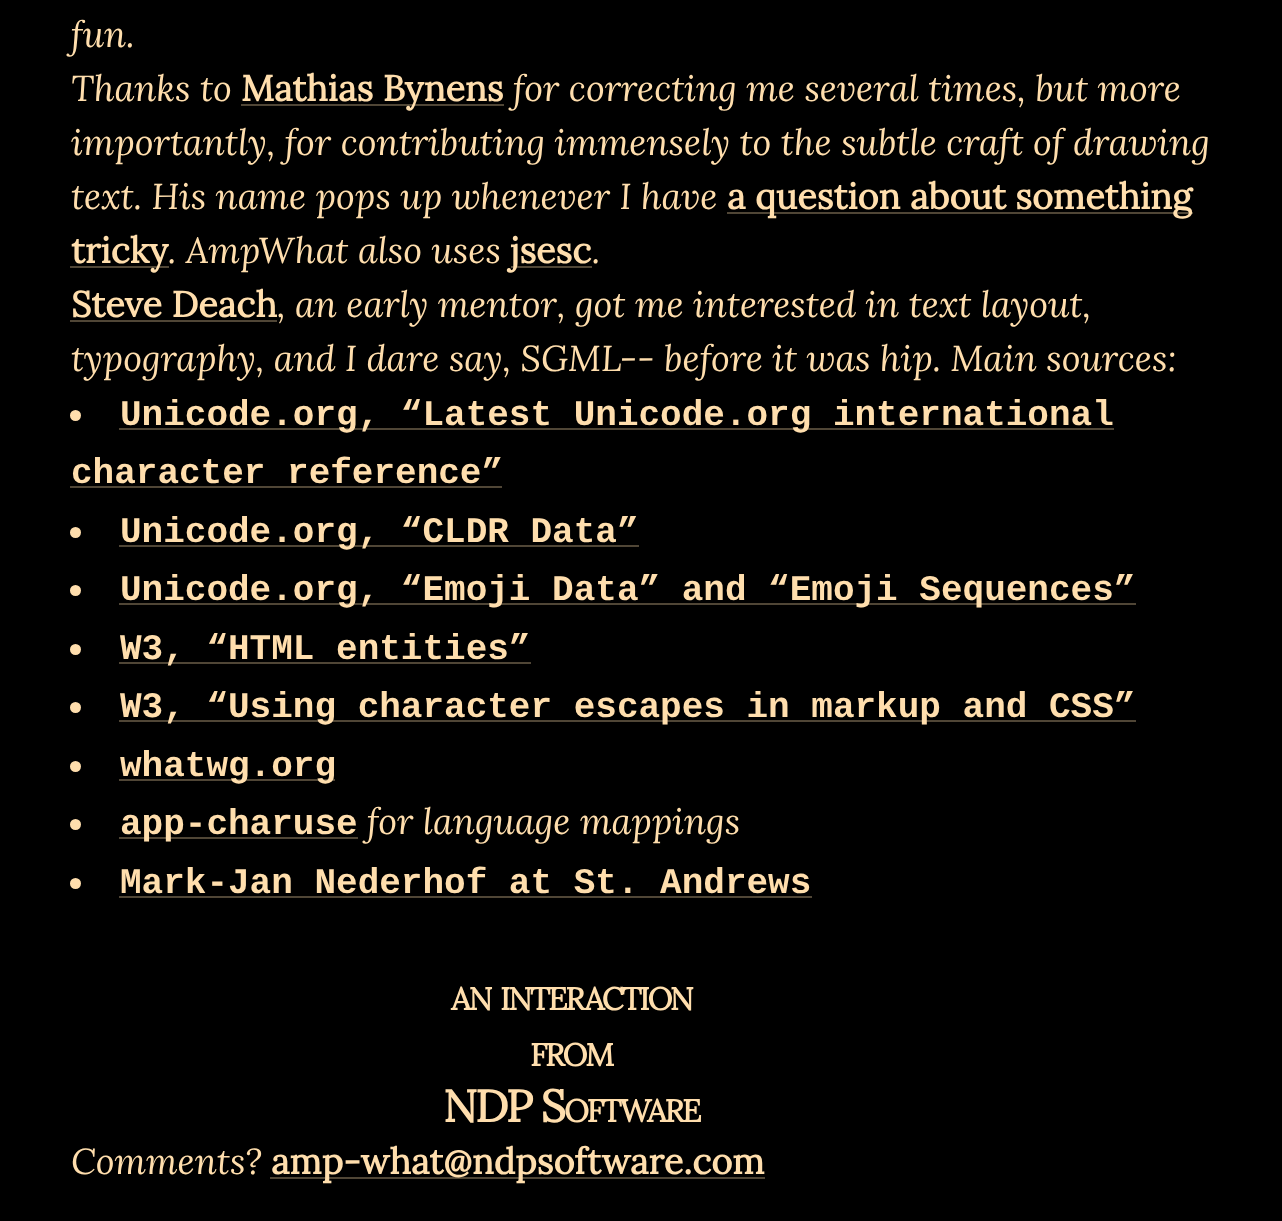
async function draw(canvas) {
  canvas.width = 1282
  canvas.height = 1221
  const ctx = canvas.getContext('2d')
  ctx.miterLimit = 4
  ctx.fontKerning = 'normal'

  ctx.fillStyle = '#000'
  ctx.fillRect(0, 0, 1282, 1221)
  ctx.font = 'italic 36px Lora'
  ctx.fillStyle = '#ffdead'
  ctx.fillText('fun.', 71, 47)
  ctx.fillText('Thanks to', 71, 101)
  ctx.fillStyle = '#504636'
  ctx.fillRect(241, 104, 263, 2)
  ctx.font = 'bold 36px Lora'
  ctx.fillStyle = '#ffdead'
  ctx.fillText('Mathias Bynens', 241, 101)
  ctx.font = 'italic 36px Lora'
  ctx.fillText('for correcting me several times, but more', 513, 101)
  ctx.fillText('importantly, for contributing immensely to the subtle craft of drawing', 71, 155)
  ctx.fillText('text. His name pops up whenever I have', 71, 209)
  ctx.fillStyle = '#504636'
  ctx.fillRect(727, 212, 466, 2)
  ctx.font = 'bold 36px Lora'
  ctx.fillStyle = '#ffdead'
  ctx.fillText('a question about something', 727, 209)
  ctx.fillStyle = '#504636'
  ctx.fillRect(70, 266, 99, 2)
  ctx.fillStyle = '#ffdead'
  ctx.fillText('tricky', 71, 263)
  ctx.font = 'italic 36px Lora'
  ctx.fillText('. AmpWhat also uses', 168, 263)
  ctx.fillStyle = '#504636'
  ctx.fillRect(511, 266, 81, 2)
  ctx.font = 'bold 36px Lora'
  ctx.fillStyle = '#ffdead'
  ctx.fillText('jsesc', 510, 263)
  ctx.font = 'italic 36px Lora'
  ctx.fillText('.', 592, 263)
  ctx.font = 'bold 36px Lora'
  ctx.fillText('Steve Deach', 71, 317)
  ctx.fillStyle = '#504636'
  ctx.fillRect(70, 320, 207, 2)
  ctx.font = 'italic 36px Lora'
  ctx.fillStyle = '#ffdead'
  ctx.fillText(', an early mentor, got me interested in text layout,', 277, 317)
  ctx.fillText('typography, and I dare say, SGML-- before it was hip. Main sources:', 71, 371)
  ctx.beginPath()
  ctx.arc(75.5, 415.5, 5.5, 0, 2 * Math.PI)
  ctx.fill()
  ctx.fillStyle = '#504636'
  ctx.fillRect(119, 428, 995, 2)
  ctx.font = 'bold 36px Liberation Mono'
  ctx.fillStyle = '#ffdead'
  ctx.fillText('Unicode.org, “Latest Unicode.org international', 120, 425)
  ctx.fillText('character reference”', 71, 483)
  ctx.fillStyle = '#504636'
  ctx.fillRect(70, 486, 432, 2)
  ctx.fillStyle = '#ffdead'
  ctx.beginPath()
  ctx.arc(75.5, 532.5, 5.5, 0, 2 * Math.PI)
  ctx.fill()
  ctx.fillStyle = '#504636'
  ctx.fillRect(119, 545, 520, 2)
  ctx.fillStyle = '#ffdead'
  ctx.fillText('Unicode.org, “CLDR Data”', 120, 542)
  ctx.beginPath()
  ctx.arc(75.5, 590.5, 5.5, 0, 2 * Math.PI)
  ctx.fill()
  ctx.fillStyle = '#504636'
  ctx.fillRect(119, 603, 1017, 2)
  ctx.fillStyle = '#ffdead'
  ctx.fillText('Unicode.org, “Emoji Data” and “Emoji Sequences”', 120, 600)
  ctx.beginPath()
  ctx.arc(75.5, 649.5, 5.5, 0, 2 * Math.PI)
  ctx.fill()
  ctx.fillStyle = '#504636'
  ctx.fillRect(119, 662, 412, 2)
  ctx.fillStyle = '#ffdead'
  ctx.fillText('W3, “HTML entities”', 120, 659)
  ctx.beginPath()
  ctx.arc(75.5, 707.5, 5.5, 0, 2 * Math.PI)
  ctx.fill()
  ctx.fillStyle = '#504636'
  ctx.fillRect(119, 720, 1017, 2)
  ctx.fillStyle = '#ffdead'
  ctx.fillText('W3, “Using character escapes in markup and CSS”', 120, 717)
  ctx.beginPath()
  ctx.arc(75.5, 766.5, 5.5, 0, 2 * Math.PI)
  ctx.fill()
  ctx.fillStyle = '#504636'
  ctx.fillRect(119, 779, 216, 2)
  ctx.fillStyle = '#ffdead'
  ctx.fillText('whatwg.org', 120, 776)
  ctx.beginPath()
  ctx.arc(75.5, 824.5, 5.5, 0, 2 * Math.PI)
  ctx.fill()
  ctx.fillStyle = '#504636'
  ctx.fillRect(119, 837, 239, 2)
  ctx.fillStyle = '#ffdead'
  ctx.fillText('app-charuse', 120, 834)
  ctx.font = 'italic 36px Lora'
  ctx.fillText('for language mappings', 367, 834)
  ctx.beginPath()
  ctx.arc(75.5, 883.5, 5.5, 0, 2 * Math.PI)
  ctx.fill()
  ctx.font = 'bold 36px Liberation Mono'
  ctx.fillText('Mark-Jan Nederhof at St. Andrews', 120, 893)
  ctx.fillStyle = '#504636'
  ctx.fillRect(119, 896, 693, 2)
  ctx.letterSpacing = '-2.25px'
  ctx.font = 'bold 31.5px Lora'
  ctx.fillStyle = '#ffdead'
  ctx.fillText('AN', 451, 1010)
  ctx.fillText('INTERACTION', 500, 1010)
  ctx.fillText('FROM', 530, 1066)
  ctx.font = 'bold 45px Lora'
  ctx.fillText('NDP S', 443, 1122)
  ctx.font = 'bold 31.5px Lora'
  ctx.fillText('OFTWARE', 564, 1122)
  ctx.letterSpacing = '0px'
  ctx.font = 'italic 36px Lora'
  ctx.fillText('Comments?', 71, 1174)
  ctx.fillStyle = '#504636'
  ctx.fillRect(270, 1177, 495, 2)
  ctx.font = 'bold 36px Lora'
  ctx.fillStyle = '#ffdead'
  ctx.fillText('amp-what@ndpsoftware.com', 271, 1174)
}

draw(document.querySelector('canvas'))
